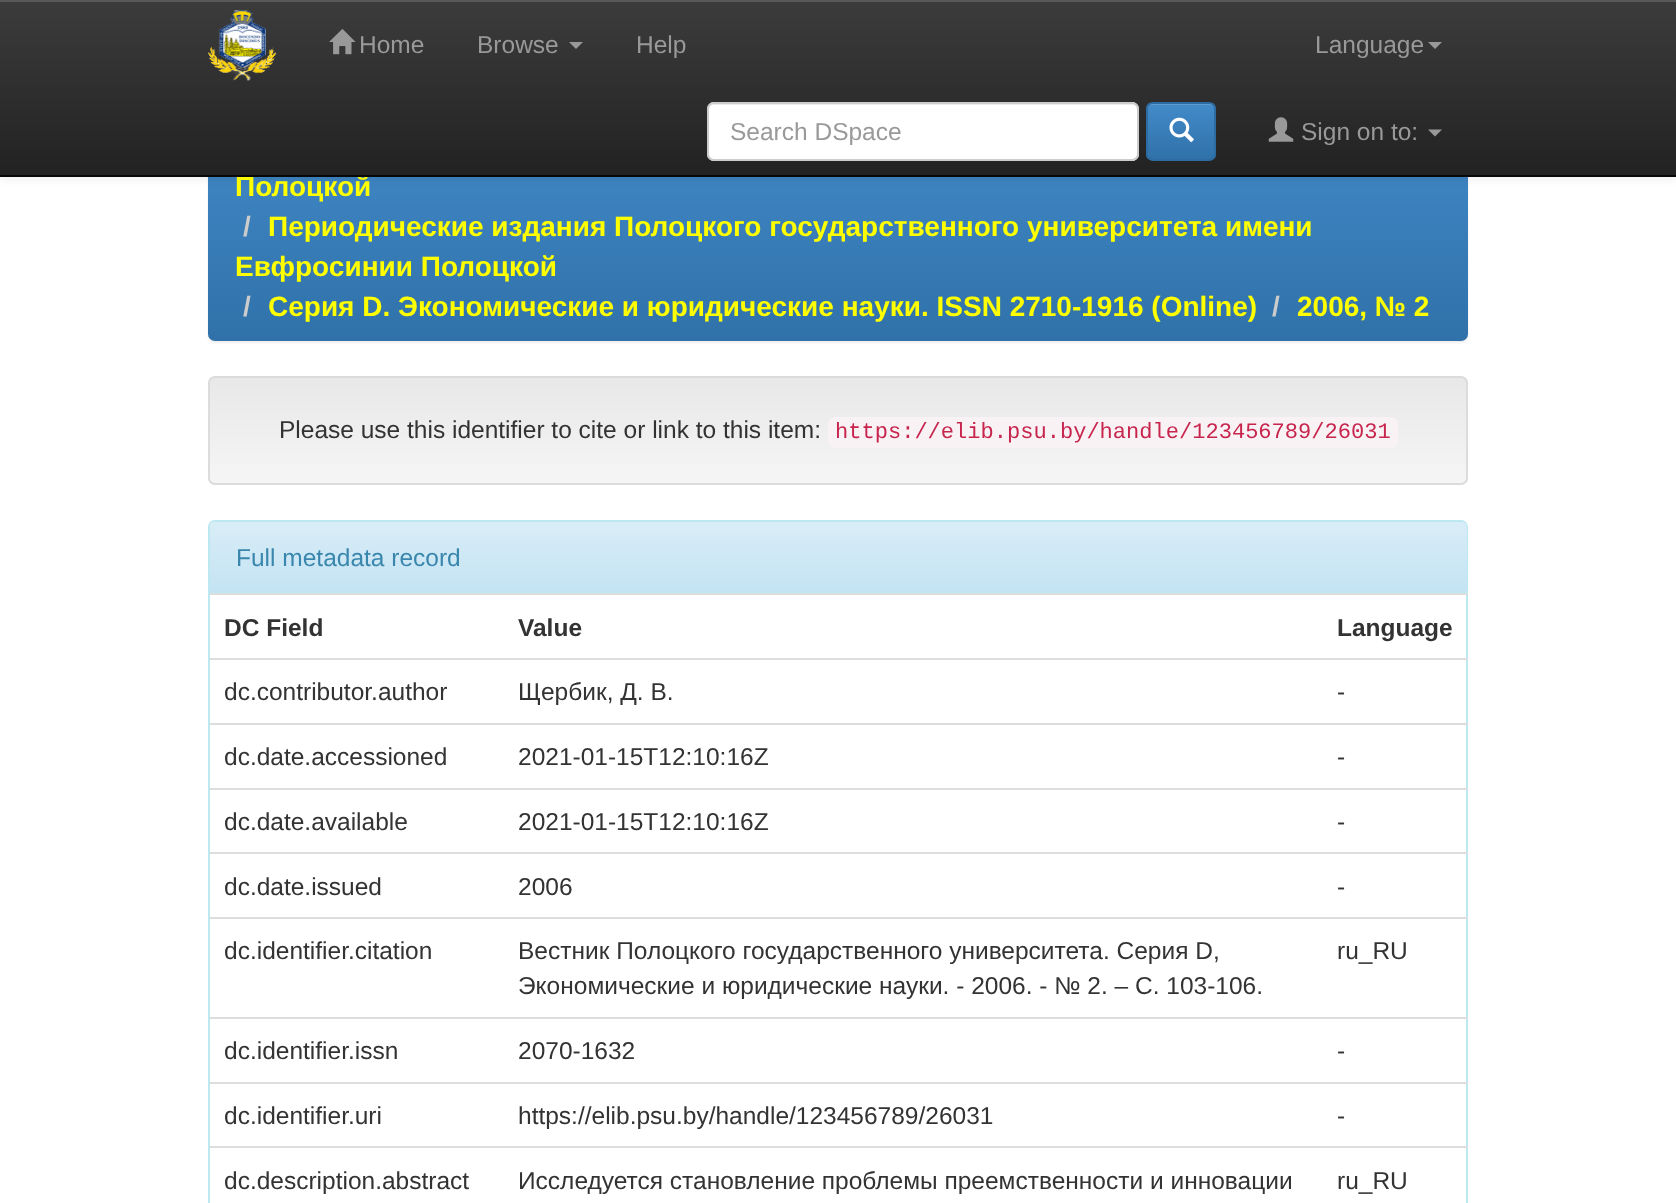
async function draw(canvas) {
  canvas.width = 1676
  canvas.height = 1203
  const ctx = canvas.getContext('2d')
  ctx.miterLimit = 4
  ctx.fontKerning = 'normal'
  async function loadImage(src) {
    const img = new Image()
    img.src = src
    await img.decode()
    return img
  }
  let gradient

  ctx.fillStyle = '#fff'
  ctx.fillRect(0, 0, 1676, 1203)
  ctx.fillStyle = '#00000012'
  ctx.filter = 'blur(1px)'
  ctx.beginPath()
  ctx.roundRect(208, 116, 1260, 227, 7)
  ctx.fill()
  ctx.filter = 'none'
  gradient = ctx.createLinearGradient(838, 114, 838, 341)
  gradient.addColorStop(0, '#428bca')
  gradient.addColorStop(1, '#3071a9')
  ctx.fillStyle = gradient
  ctx.beginPath()
  ctx.roundRect(208, 114, 1260, 227, 7)
  ctx.fill()
  ctx.fillStyle = '#00000012'
  ctx.filter = 'blur(4.5px)'
  ctx.beginPath()
  ctx.rect(0, 2, 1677, 177)
  ctx.fill()
  ctx.filter = 'none'
  gradient = ctx.createLinearGradient(838, 0, 838, 175)
  gradient.addColorStop(0, '#3c3c3c')
  gradient.addColorStop(1, '#222')
  ctx.fillStyle = gradient
  ctx.fillRect(0, 2, 1676, 173)
  ctx.fillStyle = '#595959'
  ctx.fillRect(0, 0, 1676, 2)
  ctx.font = 'bold 28px Liberation Sans'
  ctx.fillStyle = '#ff0'
  ctx.fillText('Полоцкой', 235, 196)
  ctx.fillStyle = '#080808'
  ctx.fillRect(0, 175, 1676, 2)
  ctx.drawImage(await loadImage('image0.png'), 208, 10, 69, 71)
  ctx.drawImage(await loadImage('image1.png'), 329, 29, 27, 26)
  ctx.font = '24.5px Liberation Sans'
  ctx.fillStyle = '#999'
  ctx.fillText('Home', 359, 53)
  ctx.fillText('Browse', 477, 53)
  ctx.beginPath()
  ctx.moveTo(569, 42)
  ctx.lineTo(583, 42)
  ctx.lineTo(576, 49)
  ctx.closePath()
  ctx.fill()
  ctx.fillText('Help', 636, 53)
  ctx.fillText('Language', 1315, 53)
  ctx.beginPath()
  ctx.moveTo(1428, 42)
  ctx.lineTo(1442, 42)
  ctx.lineTo(1435, 49)
  ctx.closePath()
  ctx.fill()
  ctx.fillStyle = '#fff'
  ctx.beginPath()
  ctx.roundRect(707, 102, 432, 59, 7)
  ctx.fill()
  ctx.fillStyle = '#ececec'
  ctx.beginPath()
  ctx.moveTo(714, 105)
  ctx.lineTo(1132, 105)
  ctx.bezierCurveTo(1135, 105, 1138, 107, 1138, 110)
  ctx.bezierCurveTo(1138, 107, 1137, 103, 1133, 103)
  ctx.lineTo(714, 103)
  ctx.bezierCurveTo(710, 103, 709, 107, 709, 110)
  ctx.bezierCurveTo(709, 107, 711, 105, 714, 105)
  ctx.closePath()
  ctx.fill()
  ctx.beginPath()
  ctx.roundRect(708, 103, 430, 57, 6)
  ctx.strokeStyle = '#ccc'
  ctx.lineWidth = 2
  ctx.stroke()
  ctx.fillStyle = '#999'
  ctx.fillText('Search DSpace', 730, 140)
  ctx.save()
  ctx.beginPath()
  ctx.roundRect(1146, 102, 70, 59, 7)
  ctx.clip()
  gradient = ctx.createLinearGradient(1181, 103, 1181, 159)
  gradient.addColorStop(0, '#428bca')
  gradient.addColorStop(1, '#3071a9')
  ctx.fillStyle = gradient
  ctx.fillRect(1146, 103, 70, 56)
  ctx.restore()
  ctx.fillStyle = '#ffffff26'
  ctx.beginPath()
  ctx.moveTo(1153, 105)
  ctx.lineTo(1210, 105)
  ctx.bezierCurveTo(1216, 106, 1214, 114, 1214, 118)
  ctx.lineTo(1214, 157)
  ctx.bezierCurveTo(1215, 156, 1215, 155, 1215, 154)
  ctx.lineTo(1215, 108)
  ctx.bezierCurveTo(1215, 105, 1213, 103, 1210, 103)
  ctx.lineTo(1153, 103)
  ctx.bezierCurveTo(1150, 103, 1148, 105, 1148, 108)
  ctx.lineTo(1148, 110)
  ctx.bezierCurveTo(1148, 107, 1150, 105, 1153, 105)
  ctx.closePath()
  ctx.fill()
  ctx.beginPath()
  ctx.roundRect(1147, 103, 68, 57, 6)
  ctx.strokeStyle = '#2d6ca2'
  ctx.stroke()
  ctx.drawImage(await loadImage('image2.png'), 1169, 117, 25, 26)
  ctx.drawImage(await loadImage('image3.png'), 1268, 117, 26, 25)
  ctx.fillStyle = '#999'
  ctx.fillText('Sign on to:', 1301, 140)
  ctx.beginPath()
  ctx.moveTo(1428, 129.5)
  ctx.lineTo(1442, 129.5)
  ctx.lineTo(1435, 136.5)
  ctx.closePath()
  ctx.fill()
  ctx.font = 'bold 28px Liberation Sans'
  ctx.fillStyle = '#ccc'
  ctx.fillText('/', 243, 236)
  ctx.fillStyle = '#ff0'
  ctx.fillText('Периодические издания Полоцкого государственного университета имени', 268, 236)
  ctx.fillText('Евфросинии Полоцкой', 235, 276)
  ctx.fillStyle = '#ccc'
  ctx.fillText('/', 243, 316)
  ctx.fillStyle = '#ff0'
  ctx.fillText('Серия D. Экономические и юридические науки. ISSN 2710-1916 (Online)', 268, 316)
  ctx.fillStyle = '#ccc'
  ctx.fillText('/', 1272, 316)
  ctx.fillStyle = '#ff0'
  ctx.fillText('2006, № 2', 1297, 316)
  ctx.save()
  ctx.beginPath()
  ctx.roundRect(208, 376, 1260, 109, 7)
  ctx.clip()
  gradient = ctx.createLinearGradient(838, 378, 838, 483)
  gradient.addColorStop(0, '#e8e8e8')
  gradient.addColorStop(1, '#f5f5f5')
  ctx.fillStyle = gradient
  ctx.fillRect(208, 378, 1260, 105)
  ctx.restore()
  ctx.beginPath()
  ctx.roundRect(209, 377, 1258, 107, 6)
  ctx.strokeStyle = '#dcdcdc'
  ctx.stroke()
  ctx.font = '24.5px Liberation Sans'
  ctx.fillStyle = '#333'
  ctx.fillText('Please use this identifier to cite or link to this item:', 279, 438)
  ctx.fillStyle = '#f9f2f4'
  ctx.beginPath()
  ctx.roundRect(828, 417, 570, 31, 7)
  ctx.fill()
  ctx.font = '22.05px Liberation Mono'
  ctx.fillStyle = '#c7254e'
  ctx.fillText('https://elib.psu.by/handle/123456789/26031', 835, 438)
  ctx.beginPath()
  ctx.roundRect(209, 521, 1258, 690, 6)
  ctx.strokeStyle = '#bce8f1'
  ctx.stroke()
  gradient = ctx.createLinearGradient(838, 521, 838, 592)
  gradient.addColorStop(0, '#d9edf7')
  gradient.addColorStop(1, '#c4e3f3')
  ctx.fillStyle = gradient
  ctx.beginPath()
  ctx.roundRect(210, 522, 1257, 70, [5, 5, 0, 0])
  ctx.fill()
  ctx.fillStyle = '#bce8f1'
  ctx.fillRect(210, 592, 1257, 1)
  ctx.font = '24.5px Liberation Sans'
  ctx.fillStyle = '#3a87ad'
  ctx.fillText('Full metadata record', 236, 566)
  ctx.font = 'bold 24.5px Liberation Sans'
  ctx.fillStyle = '#333'
  ctx.fillText('DC Field', 224, 636)
  ctx.fillText('Value', 518, 636)
  ctx.fillStyle = '#ddd'
  ctx.fillRect(210, 593, 1258, 2)
  ctx.fillStyle = '#333'
  ctx.fillText('Language', 1337, 636)
  ctx.font = '24.5px Liberation Sans'
  ctx.fillText('dc.contributor.author', 224, 700)
  ctx.fillText('Щербик, Д. В.', 518, 700)
  ctx.fillStyle = '#ddd'
  ctx.fillRect(210, 658, 1258, 2)
  ctx.fillStyle = '#333'
  ctx.fillText('-', 1337, 700)
  ctx.fillText('dc.date.accessioned', 224, 765)
  ctx.fillText('2021-01-15T12:10:16Z', 518, 765)
  ctx.fillStyle = '#ddd'
  ctx.fillRect(210, 723, 1258, 2)
  ctx.fillStyle = '#333'
  ctx.fillText('-', 1337, 765)
  ctx.fillText('dc.date.available', 224, 830)
  ctx.fillText('2021-01-15T12:10:16Z', 518, 830)
  ctx.fillStyle = '#ddd'
  ctx.fillRect(210, 788, 1258, 2)
  ctx.fillStyle = '#333'
  ctx.fillText('-', 1337, 830)
  ctx.fillText('dc.date.issued', 224, 895)
  ctx.fillText('2006', 518, 895)
  ctx.fillStyle = '#ddd'
  ctx.fillRect(210, 852, 1258, 2)
  ctx.fillStyle = '#333'
  ctx.fillText('-', 1337, 895)
  ctx.fillText('dc.identifier.citation', 224, 959)
  ctx.fillText('Вестник Полоцкого государственного университета. Серия D,', 518, 959)
  ctx.fillText('Экономические и юридические науки. - 2006. - № 2. – С. 103-106.', 518, 994)
  ctx.fillStyle = '#ddd'
  ctx.fillRect(210, 917, 1258, 2)
  ctx.fillStyle = '#333'
  ctx.fillText('ru_RU', 1337, 959)
  ctx.fillText('dc.identifier.issn', 224, 1059)
  ctx.fillText('2070-1632', 518, 1059)
  ctx.fillStyle = '#ddd'
  ctx.fillRect(210, 1017, 1258, 2)
  ctx.fillStyle = '#333'
  ctx.fillText('-', 1337, 1059)
  ctx.fillText('dc.identifier.uri', 224, 1124)
  ctx.fillText('https://elib.psu.by/handle/123456789/26031', 518, 1124)
  ctx.fillStyle = '#ddd'
  ctx.fillRect(210, 1082, 1258, 2)
  ctx.fillStyle = '#333'
  ctx.fillText('-', 1337, 1124)
  ctx.fillText('dc.description.abstract', 224, 1189)
  ctx.fillText('Исследуется становление проблемы преемственности и инновации', 518, 1189)
  ctx.fillStyle = '#ddd'
  ctx.fillRect(210, 1146, 1258, 2)
  ctx.fillStyle = '#333'
  ctx.fillText('ru_RU', 1337, 1189)
}

draw(document.querySelector('canvas'))
